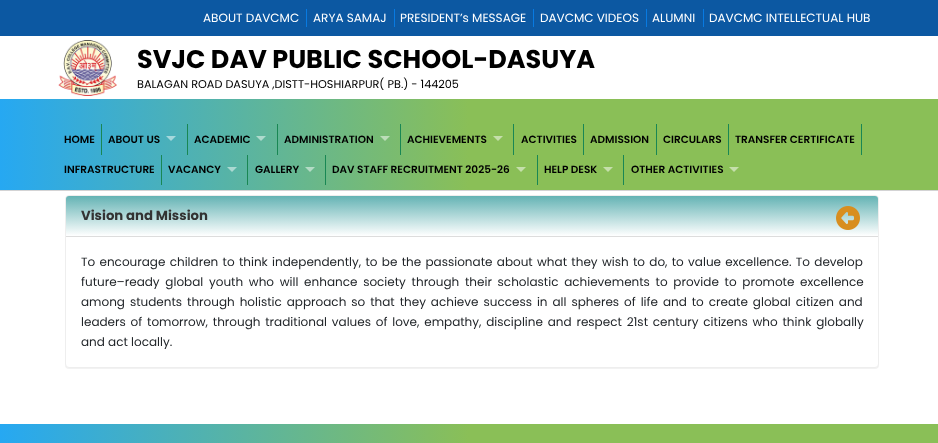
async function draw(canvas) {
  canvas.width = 938
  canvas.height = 443
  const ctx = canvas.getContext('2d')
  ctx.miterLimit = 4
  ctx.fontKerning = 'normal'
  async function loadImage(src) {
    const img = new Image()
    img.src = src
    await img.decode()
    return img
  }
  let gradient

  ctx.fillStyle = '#fff'
  ctx.fillRect(0, 0, 938, 443)
  ctx.fillStyle = '#0c58a2'
  ctx.fillRect(0, 0, 938, 36)
  ctx.fillStyle = '#087ae1'
  ctx.fillRect(306, 9, 1, 18)
  ctx.font = '12px Poppins'
  ctx.fillStyle = '#fff'
  ctx.fillText('ABOUT DAVCMC', 203, 22)
  ctx.fillStyle = '#087ae1'
  ctx.fillRect(394, 9, 1, 18)
  ctx.fillStyle = '#fff'
  ctx.fillText('ARYA SAMAJ', 313, 22)
  ctx.fillStyle = '#087ae1'
  ctx.fillRect(533, 9, 1, 18)
  ctx.fillStyle = '#fff'
  ctx.fillText('PRESIDENT’s MESSAGE', 400, 22)
  ctx.fillStyle = '#087ae1'
  ctx.fillRect(646, 9, 1, 18)
  ctx.fillStyle = '#fff'
  ctx.fillText('DAVCMC VIDEOS', 540, 22)
  ctx.fillStyle = '#087ae1'
  ctx.fillRect(703, 9, 1, 18)
  ctx.fillStyle = '#fff'
  ctx.fillText('ALUMNI', 652, 22)
  ctx.fillText('DAVCMC INTELLECTUAL HUB', 709, 22)
  ctx.drawImage(await loadImage('image0.png'), 58, 40, 59, 56)
  ctx.font = 'bold 25.5px Poppins'
  ctx.fillStyle = '#000'
  ctx.fillText('SVJC DAV PUBLIC SCHOOL-DASUYA', 137, 68)
  ctx.font = '11.25px Poppins'
  ctx.fillText('BALAGAN ROAD DASUYA ,DISTT-HOSHIARPUR( PB.) - 144205', 137, 88)
  gradient = ctx.createLinearGradient(0, 145, 938, 144)
  gradient.addColorStop(0, '#26a8f2')
  gradient.addColorStop(0.5, '#8abf57')
  ctx.fillStyle = gradient
  ctx.fillRect(0, 99, 938, 91)
  ctx.fillStyle = '#d3d3d4'
  ctx.fillRect(0, 190, 938, 1)
  ctx.fillStyle = '#198754'
  ctx.fillRect(101, 124, 1, 31)
  ctx.font = '600 10.5px Poppins'
  ctx.fillStyle = '#000'
  ctx.fillText('HOME', 64, 143)
  ctx.fillStyle = '#198754'
  ctx.fillRect(187, 124, 1, 31)
  ctx.fillStyle = '#000'
  ctx.fillText('ABOUT US', 108, 143)
  ctx.fillStyle = '#ffffff80'
  ctx.beginPath()
  ctx.moveTo(166, 136)
  ctx.lineTo(176, 136)
  ctx.lineTo(171, 141)
  ctx.closePath()
  ctx.fill()
  ctx.fillStyle = '#198754'
  ctx.fillRect(277, 124, 1, 31)
  ctx.fillStyle = '#000'
  ctx.fillText('ACADEMIC', 194, 143)
  ctx.fillStyle = '#aedacd'
  ctx.beginPath()
  ctx.moveTo(256, 136)
  ctx.lineTo(266, 136)
  ctx.lineTo(261, 141)
  ctx.closePath()
  ctx.fill()
  ctx.fillStyle = '#198754'
  ctx.fillRect(400, 124, 1, 31)
  ctx.fillStyle = '#000'
  ctx.fillText('ADMINISTRATION', 284, 143)
  ctx.fillStyle = '#bcddb9'
  ctx.beginPath()
  ctx.moveTo(380, 136)
  ctx.lineTo(390, 136)
  ctx.lineTo(385, 141)
  ctx.closePath()
  ctx.fill()
  ctx.fillStyle = '#198754'
  ctx.fillRect(513, 124, 1, 31)
  ctx.fillStyle = '#000'
  ctx.fillText('ACHIEVEMENTS', 407, 143)
  ctx.fillStyle = '#c5dfab'
  ctx.beginPath()
  ctx.moveTo(493, 136)
  ctx.lineTo(503, 136)
  ctx.lineTo(498, 141)
  ctx.closePath()
  ctx.fill()
  ctx.fillStyle = '#198754'
  ctx.fillRect(583, 124, 1, 31)
  ctx.fillStyle = '#000'
  ctx.fillText('ACTIVITIES', 521, 143)
  ctx.fillStyle = '#198754'
  ctx.fillRect(656, 124, 1, 31)
  ctx.fillStyle = '#000'
  ctx.fillText('ADMISSION', 590, 143)
  ctx.fillStyle = '#198754'
  ctx.fillRect(728, 124, 1, 31)
  ctx.fillStyle = '#000'
  ctx.fillText('CIRCULARS', 663, 143)
  ctx.fillStyle = '#198754'
  ctx.fillRect(861, 124, 1, 31)
  ctx.fillStyle = '#000'
  ctx.fillText('TRANSFER CERTIFICATE', 735, 143)
  ctx.fillStyle = '#198754'
  ctx.fillRect(161, 155, 1, 30)
  ctx.fillStyle = '#000'
  ctx.fillText('INFRASTRUCTURE', 64, 173)
  ctx.fillStyle = '#198754'
  ctx.fillRect(247, 155, 1, 30)
  ctx.fillStyle = '#000'
  ctx.fillText('VACANCY', 168, 173)
  ctx.fillStyle = '#abd9d2'
  ctx.beginPath()
  ctx.moveTo(227, 167)
  ctx.lineTo(237, 167)
  ctx.lineTo(232, 172)
  ctx.closePath()
  ctx.fill()
  ctx.fillStyle = '#198754'
  ctx.fillRect(325, 155, 1, 30)
  ctx.fillStyle = '#000'
  ctx.fillText('GALLERY', 255, 173)
  ctx.fillStyle = '#ffffff80'
  ctx.beginPath()
  ctx.moveTo(305, 167)
  ctx.lineTo(315, 167)
  ctx.lineTo(310, 172)
  ctx.closePath()
  ctx.fill()
  ctx.fillStyle = '#198754'
  ctx.fillRect(537, 155, 1, 30)
  ctx.fillStyle = '#000'
  ctx.fillText('DAV STAFF RECRUITMENT 2025-26', 332, 173)
  ctx.fillStyle = '#c5dfab'
  ctx.beginPath()
  ctx.moveTo(516, 167)
  ctx.lineTo(526, 167)
  ctx.lineTo(521, 172)
  ctx.closePath()
  ctx.fill()
  ctx.fillStyle = '#198754'
  ctx.fillRect(623, 155, 1, 30)
  ctx.fillStyle = '#000'
  ctx.fillText('HELP DESK', 544, 173)
  ctx.fillStyle = '#c5dfab'
  ctx.beginPath()
  ctx.moveTo(603, 167)
  ctx.lineTo(613, 167)
  ctx.lineTo(608, 172)
  ctx.closePath()
  ctx.fill()
  ctx.fillStyle = '#000'
  ctx.fillText('OTHER ACTIVITIES', 631, 173)
  ctx.fillStyle = '#c5dfab'
  ctx.beginPath()
  ctx.moveTo(729, 167)
  ctx.lineTo(739, 167)
  ctx.lineTo(734, 172)
  ctx.closePath()
  ctx.fill()
  ctx.fillStyle = '#0000000d'
  ctx.filter = 'blur(0.5px)'
  ctx.beginPath()
  ctx.roundRect(65, 196, 814, 173, 4)
  ctx.fill()
  ctx.filter = 'none'
  ctx.fillStyle = '#fff'
  ctx.beginPath()
  ctx.roundRect(65.5, 195.5, 813, 172, 3.5)
  ctx.fill()
  ctx.strokeStyle = '#eee'
  ctx.stroke()
  gradient = ctx.createLinearGradient(472, 196, 472, 236)
  gradient.addColorStop(0, '#64b3b4')
  gradient.addColorStop(1, '#fff')
  ctx.fillStyle = gradient
  ctx.beginPath()
  ctx.roundRect(66, 196, 812, 40, [3, 3, 0, 0])
  ctx.fill()
  ctx.fillStyle = '#ddd'
  ctx.fillRect(66, 236, 812, 1)
  ctx.font = 'bold 13.25px Poppins'
  ctx.fillStyle = '#333'
  ctx.fillText('Vision and Mission', 81, 220)
  ctx.drawImage(await loadImage('image1.png'), 836, 206, 24, 24)
  ctx.wordSpacing = '1.1px'
  ctx.font = '12px Poppins'
  ctx.fillStyle = '#212529'
  ctx.fillText('To encourage children to think independently, to be the passionate about what they wish to do, to value excellence. To develop', 81, 266)
  ctx.wordSpacing = '2.5px'
  ctx.fillText('future–ready global youth who will enhance society through their scholastic achievements to provide to promote excellence', 81, 286)
  ctx.wordSpacing = '1.75px'
  ctx.fillText('among students through holistic approach so that they achieve success in all spheres of life and to create global citizen and', 81, 306)
  ctx.wordSpacing = '1.6px'
  ctx.fillText('leaders of tomorrow, through traditional values of love, empathy, discipline and respect 21st century citizens who think globally', 81, 326)
  ctx.wordSpacing = '0px'
  ctx.fillText('and act locally.', 81, 346)
  gradient = ctx.createLinearGradient(0, 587, 938, 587)
  gradient.addColorStop(0, '#26a8f2')
  gradient.addColorStop(0.5, '#8abf57')
  ctx.fillStyle = gradient
  ctx.fillRect(0, 424, 938, 19)
}

draw(document.querySelector('canvas'))
